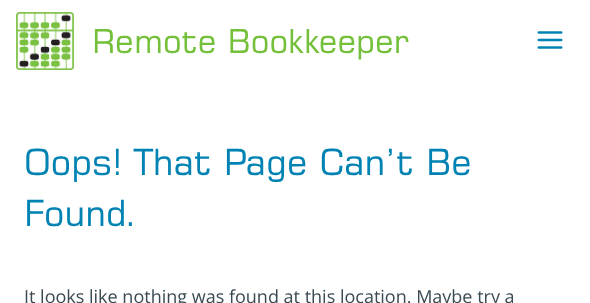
async function draw(canvas) {
  canvas.width = 590
  canvas.height = 303
  const ctx = canvas.getContext('2d')
  ctx.miterLimit = 4
  ctx.fontKerning = 'normal'
  async function loadImage(src) {
    const img = new Image()
    img.src = src
    await img.decode()
    return img
  }

  ctx.fillStyle = '#fff'
  ctx.fillRect(0, 0, 590, 303)
  ctx.drawImage(await loadImage('image0.png'), 16, 12, 58, 58)
  ctx.font = '33px "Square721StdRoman"'
  ctx.fillStyle = '#74c03a'
  ctx.fillText('Remote Bookkeeper', 92, 53)
  ctx.drawImage(await loadImage('image1.png'), 537, 31, 26, 18)
  ctx.font = '36px "Square721StdRoman"'
  ctx.fillStyle = '#0083b3'
  ctx.fillText('Oops! That Page Can’t Be', 24, 175)
  ctx.fillText('Found.', 24, 226)
  ctx.font = '18px Open Sans'
  ctx.fillStyle = '#3a4952'
  ctx.fillText('It looks like nothing was found at this location. Maybe try a', 24, 303)
}

draw(document.querySelector('canvas'))
